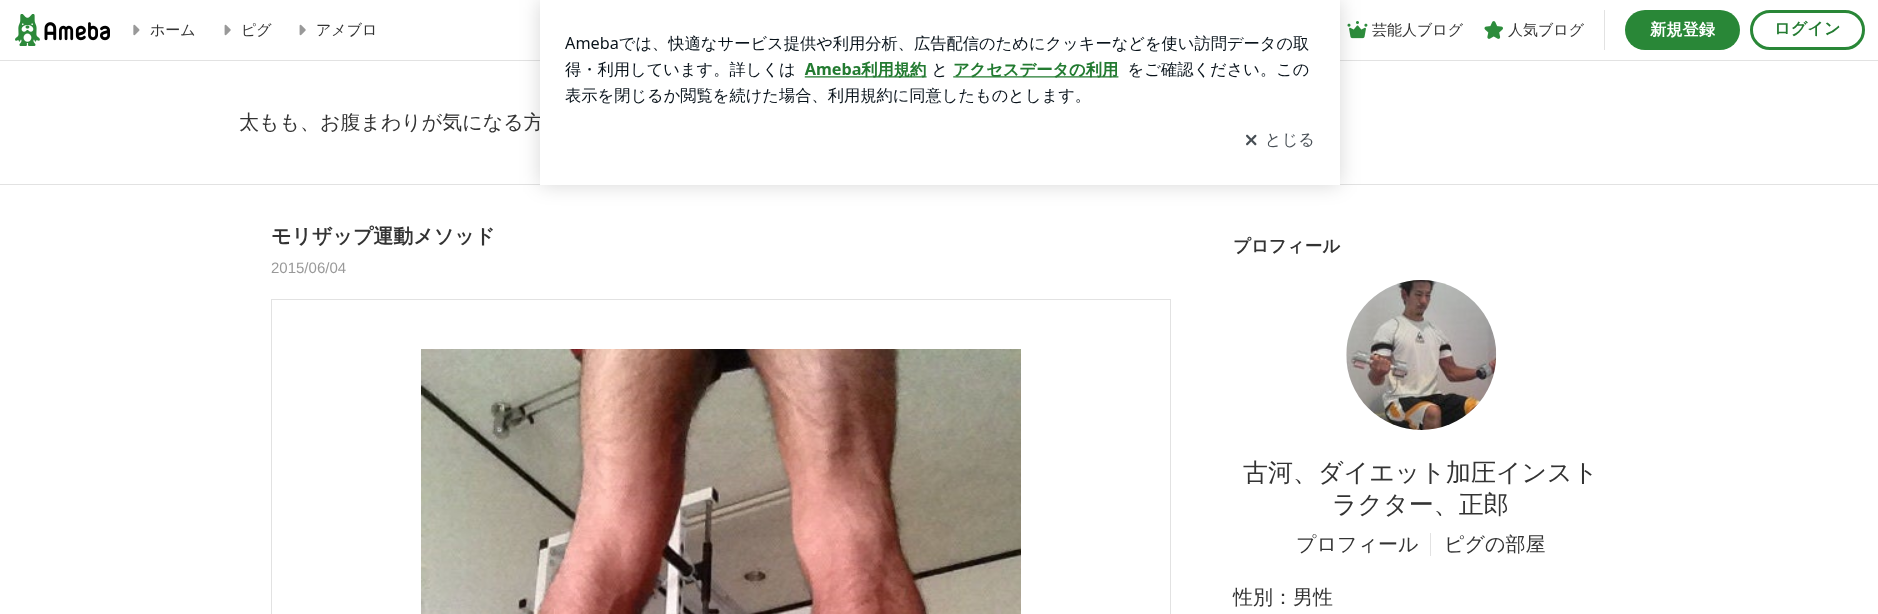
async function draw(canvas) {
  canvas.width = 1878
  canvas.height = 614
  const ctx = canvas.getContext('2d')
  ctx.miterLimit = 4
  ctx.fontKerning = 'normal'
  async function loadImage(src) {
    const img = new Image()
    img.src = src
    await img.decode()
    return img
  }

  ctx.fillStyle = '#fff'
  ctx.fillRect(0, 0, 1878, 614)
  ctx.fillStyle = '#e2e2e2'
  ctx.fillRect(0, 60, 1878, 1)
  ctx.drawImage(await loadImage('image4.png'), 1347, 21, 21, 18)
  ctx.fillRect(0, 184, 1878, 1)
  ctx.save()
  ctx.beginPath()
  ctx.moveTo(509, 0)
  ctx.lineTo(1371, 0)
  ctx.lineTo(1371, 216)
  ctx.lineTo(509, 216)
  ctx.closePath()
  ctx.moveTo(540, 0)
  ctx.lineTo(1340, 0)
  ctx.lineTo(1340, 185)
  ctx.lineTo(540, 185)
  ctx.closePath()
  ctx.clip('evenodd')
  ctx.fillStyle = '#00000029'
  ctx.filter = 'blur(10px)'
  ctx.beginPath()
  ctx.rect(540, 0, 800, 185)
  ctx.fill()
  ctx.filter = 'none'
  ctx.restore()
  ctx.font = '500 20px WenQuanYi Zen Hei'
  ctx.fillStyle = '#333'
  ctx.fillText('太もも、お腹まわりが気になる方', 239, 129)
  ctx.drawImage(await loadImage('image0.png'), 540, 21, 800, 164)
  ctx.drawImage(await loadImage('image1.png'), 15, 14, 95, 32)
  ctx.drawImage(await loadImage('image2.png'), 133, 24, 7, 12)
  ctx.font = '500 15px WenQuanYi Zen Hei'
  ctx.fillText('ホーム', 150, 35)
  ctx.drawImage(await loadImage('image3.png'), 224, 24, 7, 12)
  ctx.fillText('ピグ', 241, 35)
  ctx.drawImage(await loadImage('image3.png'), 299, 24, 7, 12)
  ctx.fillText('アメブロ', 316, 35)
  ctx.fillText('芸能人ブログ', 1372, 35)
  ctx.drawImage(await loadImage('image5.png'), 1484, 21, 19, 18)
  ctx.fillText('人気ブログ', 1508, 35)
  ctx.fillStyle = '#e2e2e2'
  ctx.fillRect(1604, 10, 1, 40)
  ctx.fillStyle = '#298737'
  ctx.beginPath()
  ctx.roundRect(1625, 10, 115, 40, 20)
  ctx.fill()
  ctx.font = 'bold 16.25px WenQuanYi Zen Hei'
  ctx.fillStyle = '#fff'
  ctx.fillText('新規登録', 1650, 35)
  ctx.beginPath()
  ctx.roundRect(1751.5, 11.5, 112, 37, 18.5)
  ctx.strokeStyle = '#298737'
  ctx.lineWidth = 3
  ctx.stroke()
  ctx.fillStyle = '#237b31'
  ctx.fillText('ログイン', 1774, 34)
  ctx.font = 'bold 20px WenQuanYi Zen Hei'
  ctx.fillStyle = '#333'
  ctx.fillText('モリザップ運動メソッド', 271, 243)
  ctx.font = '15px Liberation Sans'
  ctx.fillStyle = '#999'
  ctx.fillText('2015/06/04', 271, 273)
  ctx.strokeStyle = '#e2e2e2'
  ctx.lineWidth = 1
  ctx.strokeRect(271.5, 299.5, 899, 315)
  ctx.drawImage(await loadImage('image6.png'), 421, 349, 600, 265)
  ctx.font = 'bold 17.5px WenQuanYi Zen Hei'
  ctx.fillStyle = '#333'
  ctx.fillText('プロフィール', 1233, 252)
  ctx.drawImage(await loadImage('image7.png'), 1346, 280, 151, 150)
  ctx.font = '500 25px WenQuanYi Zen Hei'
  ctx.fillText('古河、ダイエット加圧インスト', 1243, 481)
  ctx.fillText('ラクター、正郎', 1332, 513)
  ctx.fillStyle = '#e2e2e2'
  ctx.fillRect(1430, 533, 1, 23)
  ctx.font = '500 20px WenQuanYi Zen Hei'
  ctx.fillStyle = '#333'
  ctx.fillText('プロフィール', 1296, 551)
  ctx.fillText('ピグの部屋', 1444, 551)
  ctx.fillText('性別：男性', 1233, 604)
}

draw(document.querySelector('canvas'))
